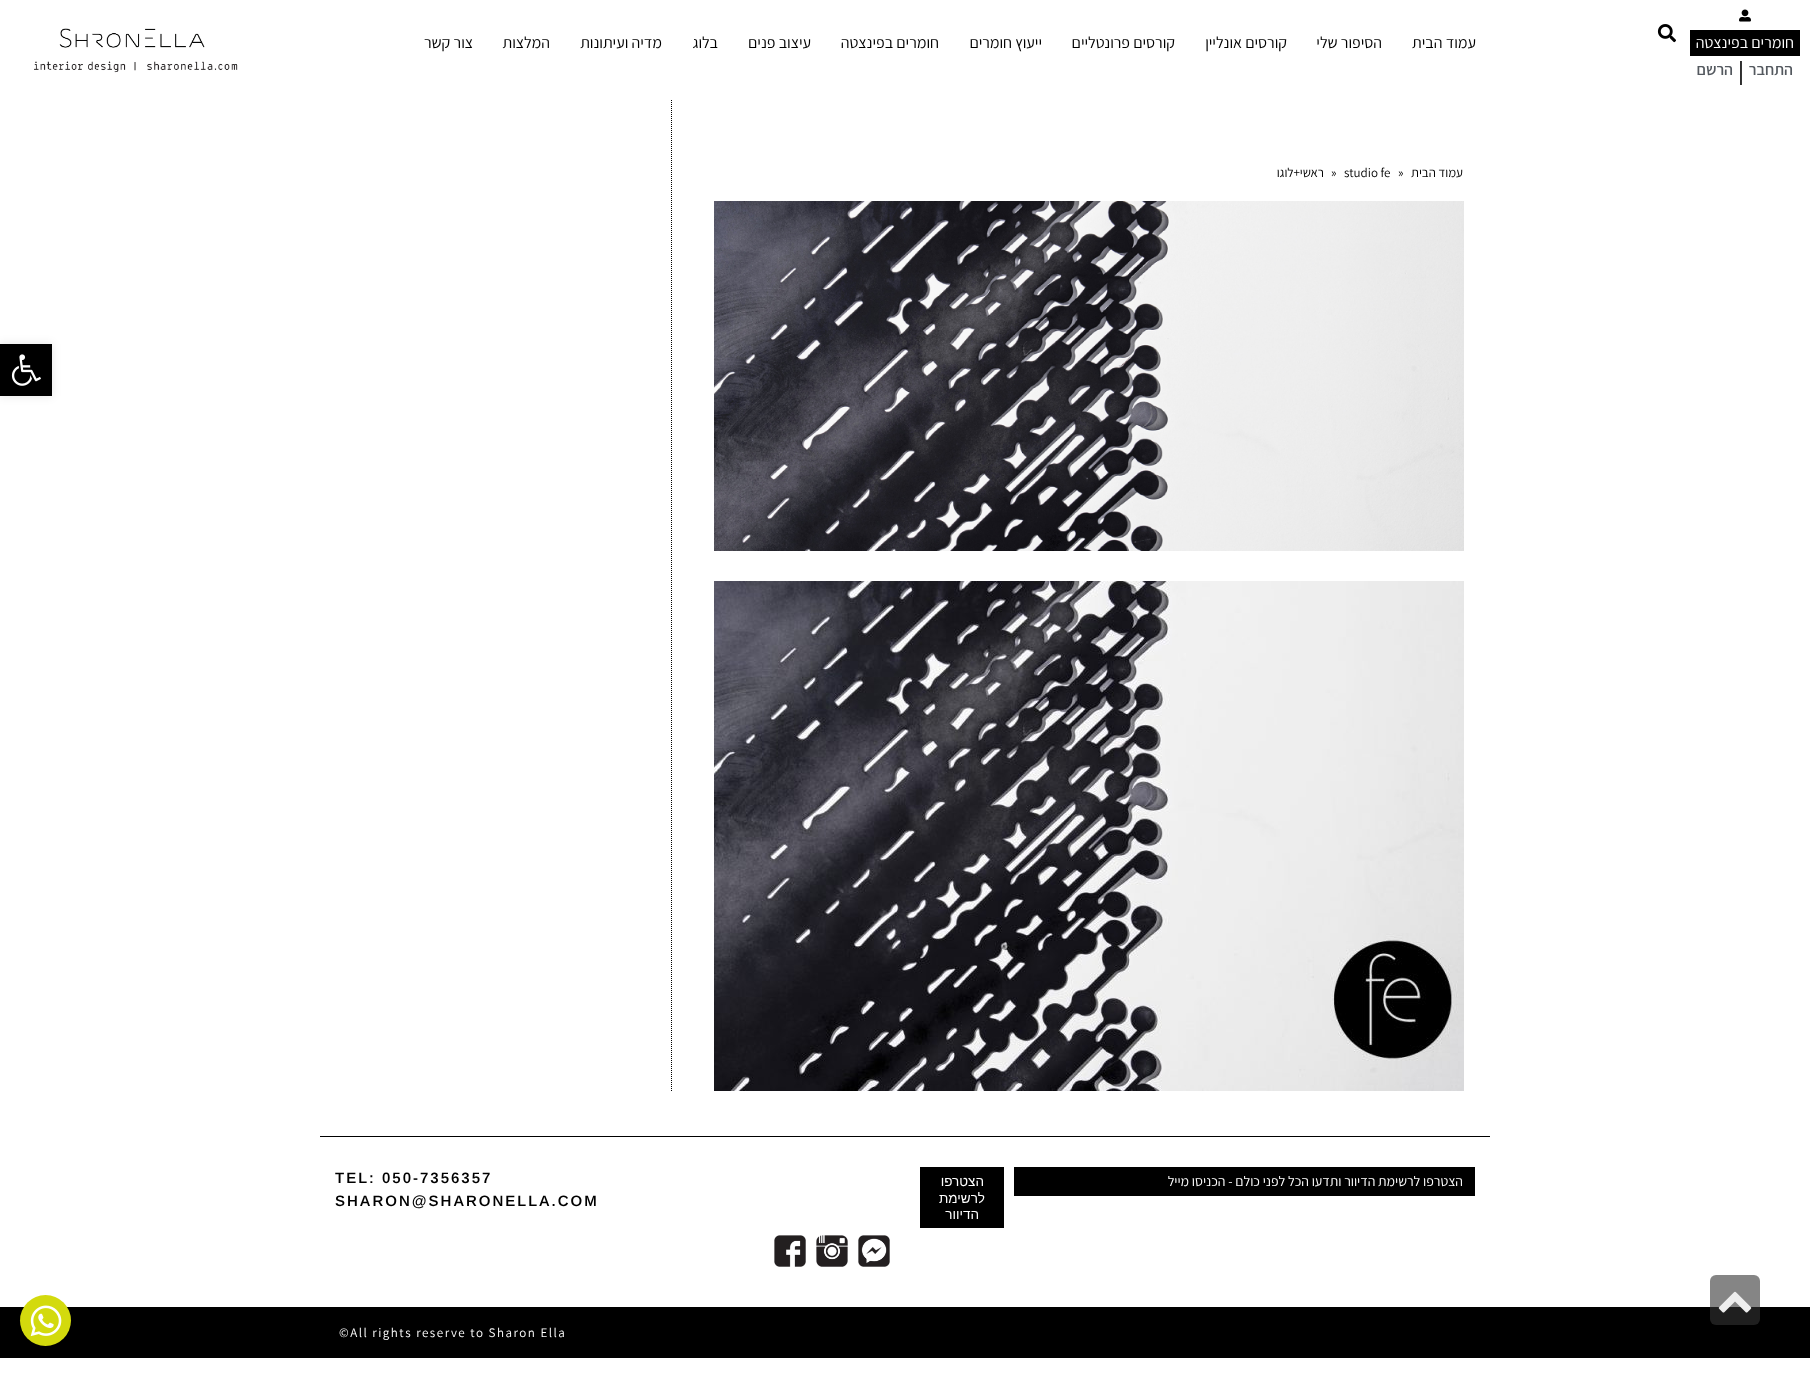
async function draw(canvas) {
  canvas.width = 1810
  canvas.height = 1375
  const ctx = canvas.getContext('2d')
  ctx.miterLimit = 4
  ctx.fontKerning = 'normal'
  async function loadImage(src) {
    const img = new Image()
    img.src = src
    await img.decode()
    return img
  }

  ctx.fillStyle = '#fff'
  ctx.fillRect(0, 0, 1810, 1375)
  ctx.drawImage(await loadImage('image0.png'), 1657, 24, 19, 19)
  ctx.fillStyle = '#000'
  ctx.fillRect(0, 1307, 1810, 51)
  ctx.fillStyle = '#d3da0d'
  ctx.beginPath()
  ctx.arc(45.5, 1320.5, 25.5, 0, 2 * Math.PI)
  ctx.fill()
  ctx.drawImage(await loadImage('image1.png'), 30, 1305, 32, 32)
  ctx.drawImage(await loadImage('image2.png'), 1739, 9, 12, 13)
  ctx.fillStyle = '#000'
  ctx.fillRect(1690, 30, 110, 26)
  ctx.direction = 'rtl'
  ctx.font = '16px Assistant'
  ctx.fillStyle = '#fff'
  ctx.fillText('חומרים בפינצטה', 1794, 48)
  ctx.font = '600 16px Assistant'
  ctx.fillStyle = '#54595f'
  ctx.fillText('התחבר', 1793, 75)
  ctx.direction = 'ltr'
  ctx.font = '600 24px Assistant'
  ctx.fillStyle = '#000'
  ctx.fillText('|', 1738, 79)
  ctx.direction = 'rtl'
  ctx.font = '600 16px Assistant'
  ctx.fillStyle = '#54595f'
  ctx.fillText('הרשם', 1733, 75)
  ctx.font = '16px Assistant'
  ctx.fillStyle = '#000'
  ctx.fillText('עמוד הבית', 1476, 48)
  ctx.fillText('הסיפור שלי', 1382, 48)
  ctx.fillText('קורסים אונליין', 1287, 48)
  ctx.fillText('קורסים פרונטליים', 1175, 48)
  ctx.fillText('ייעוץ חומרים', 1042, 48)
  ctx.fillText('חומרים בפינצטה', 939, 48)
  ctx.fillText('עיצוב פנים', 811, 48)
  ctx.fillText('בלוג', 718, 48)
  ctx.fillText('מדיה ועיתונות', 662, 48)
  ctx.fillText('המלצות', 550, 48)
  ctx.fillText('צור קשר', 473, 48)
  ctx.drawImage(await loadImage('image3.png'), 34, 28, 204, 45)
  ctx.beginPath()
  ctx.moveTo(671.5, 100)
  ctx.lineTo(671.5, 1091)
  ctx.strokeStyle = '#000'
  ctx.setLineDash([1, 1])
  ctx.stroke()
  ctx.font = '13px Assistant'
  ctx.fillText('עמוד הבית', 1463, 177)
  ctx.direction = 'ltr'
  ctx.fillText('»', 1398, 177)
  ctx.fillText('studio fe', 1344, 177)
  ctx.fillText('»', 1331, 177)
  ctx.direction = 'rtl'
  ctx.fillText('ראשי+לוגו', 1324, 177)
  ctx.drawImage(await loadImage('image4.png'), 714, 201, 750, 350)
  ctx.drawImage(await loadImage('image5.png'), 714, 581, 750, 510)
  ctx.fillRect(320, 1136, 1170, 1)
  ctx.fillRect(1014, 1167, 461, 29)
  ctx.font = '14px Assistant'
  ctx.fillStyle = '#fff'
  ctx.fillText('הצטרפו לרשימת הדיוור ותדעו הכל לפני כולם - הכניסו מייל', 1463, 1186)
  ctx.fillStyle = '#000'
  ctx.fillRect(920, 1167, 84, 61)
  ctx.font = '13.5px Liberation Sans'
  ctx.fillStyle = '#fff'
  ctx.fillText('הצטרפו', 984, 1186)
  ctx.fillText('לרשימת', 985, 1203)
  ctx.fillText('הדיוור', 979, 1219)
  ctx.letterSpacing = '2px'
  ctx.direction = 'ltr'
  ctx.font = '600 15px Arimo'
  ctx.fillStyle = '#000'
  ctx.fillText('TEL: 050-7356357', 335, 1183)
  ctx.fillText('SHARON@SHARONELLA.COM', 335, 1206)
  ctx.drawImage(await loadImage('image6.png'), 858, 1235, 32, 32)
  ctx.drawImage(await loadImage('image7.png'), 816, 1235, 32, 32)
  ctx.drawImage(await loadImage('image8.png'), 774, 1235, 32, 32)
  ctx.letterSpacing = '1.5px'
  ctx.font = '13px Assistant'
  ctx.fillStyle = '#fff'
  ctx.fillText('©All rights reserve to Sharon Ella', 339, 1337)
  ctx.fillStyle = '#0000001a'
  ctx.filter = 'blur(5px)'
  ctx.beginPath()
  ctx.rect(0, 344, 52, 52)
  ctx.fill()
  ctx.filter = 'none'
  ctx.fillStyle = '#000'
  ctx.fillRect(0, 344, 52, 52)
  ctx.drawImage(await loadImage('image9.png'), 11, 354, 30, 32)
  ctx.fillStyle = '#33333399'
  ctx.beginPath()
  ctx.roundRect(1710, 1275, 50, 50, 6)
  ctx.fill()
  ctx.drawImage(await loadImage('image10.png'), 1718, 1291, 34, 22)
}

draw(document.querySelector('canvas'))
